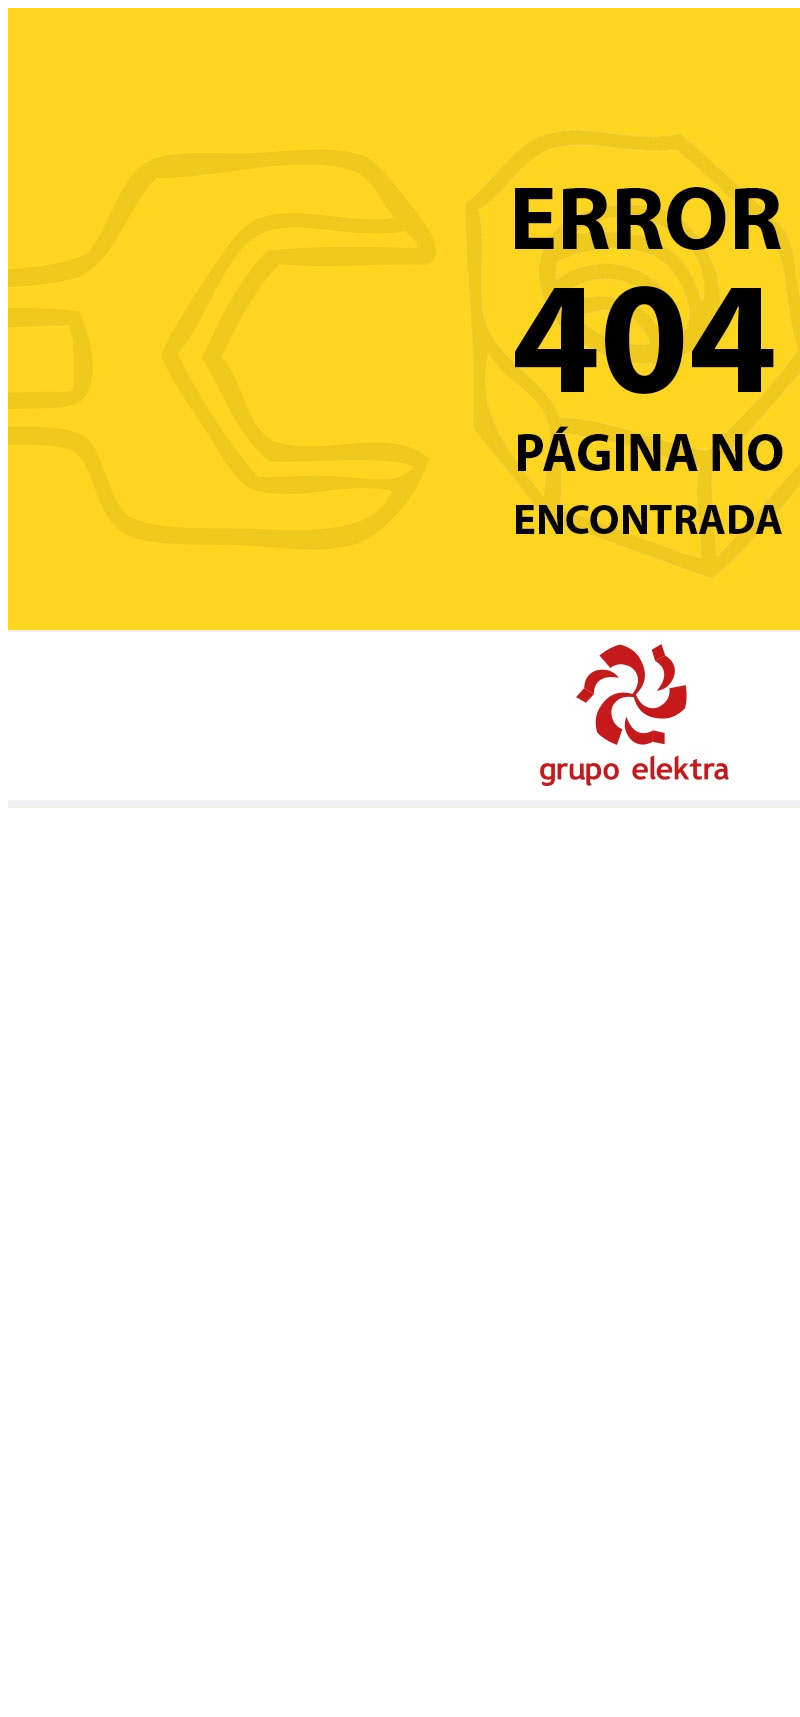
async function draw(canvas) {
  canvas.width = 800
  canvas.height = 1717
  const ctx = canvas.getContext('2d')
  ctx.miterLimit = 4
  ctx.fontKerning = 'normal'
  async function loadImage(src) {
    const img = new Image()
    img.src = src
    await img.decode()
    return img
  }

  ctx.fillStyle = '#fff'
  ctx.fillRect(0, 0, 800, 1717)
  ctx.drawImage(await loadImage('image0.png'), 8, 8, 792, 800)
}

draw(document.querySelector('canvas'))
